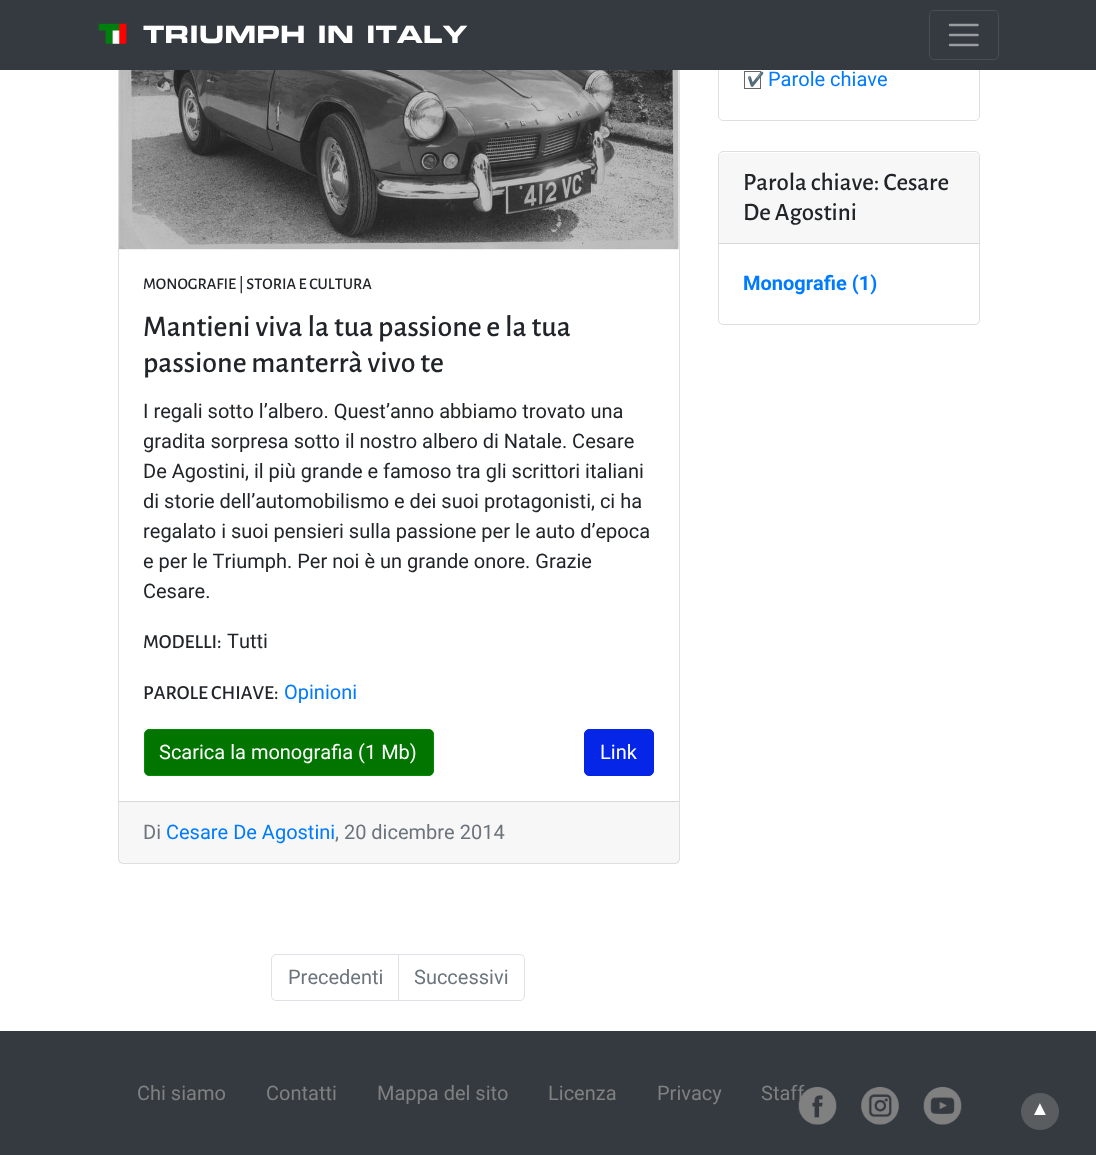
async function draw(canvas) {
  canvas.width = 1096
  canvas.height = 1155
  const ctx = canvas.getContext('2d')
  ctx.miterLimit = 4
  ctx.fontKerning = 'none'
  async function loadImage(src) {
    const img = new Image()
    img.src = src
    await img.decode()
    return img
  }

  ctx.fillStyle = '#fff'
  ctx.fillRect(0, 0, 1096, 1155)
  ctx.beginPath()
  ctx.roundRect(718.5, -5.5, 261, 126, 4.5)
  ctx.strokeStyle = '#dfdfdf'
  ctx.stroke()
  ctx.beginPath()
  ctx.roundRect(118.5, -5.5, 561, 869, 4.5)
  ctx.stroke()
  ctx.fillStyle = '#343a40'
  ctx.fillRect(0, 0, 1096, 70)
  ctx.drawImage(await loadImage('image0.png'), 98, 23, 29, 21)
  ctx.font = 'bold 24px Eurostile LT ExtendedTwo'
  ctx.fillStyle = '#fff'
  ctx.fillText('TRIUMPH IN ITALY', 143, 43)
  ctx.beginPath()
  ctx.roundRect(929.5, 10.5, 69, 49, 4.5)
  ctx.strokeStyle = '#484e53'
  ctx.stroke()
  ctx.beginPath()
  ctx.moveTo(950, 25)
  ctx.lineTo(977.5, 25)
  ctx.moveTo(950, 35)
  ctx.lineTo(977.5, 35)
  ctx.moveTo(950, 45)
  ctx.lineTo(977.5, 45)
  ctx.strokeStyle = '#9a9da0'
  ctx.lineWidth = 2.5
  ctx.lineCap = 'round'
  ctx.stroke()
  ctx.strokeStyle = '#666'
  ctx.lineWidth = 1
  ctx.strokeRect(744.5, 71.5, 16, 17)
  ctx.font = '14px Noto Color Emoji'
  ctx.fillStyle = '#212529'
  ctx.fillText('✔', 747, 84)
  ctx.font = '20px Roboto'
  ctx.fillStyle = '#007bff'
  ctx.fillText('Parole chiave', 768, 86)
  ctx.beginPath()
  ctx.roundRect(718.5, 151.5, 261, 173, 4.5)
  ctx.strokeStyle = '#dfdfdf'
  ctx.stroke()
  ctx.fillStyle = '#f7f7f7'
  ctx.beginPath()
  ctx.roundRect(719, 153, 260, 91, [4, 4, 0, 0])
  ctx.fill()
  ctx.fillStyle = '#d8d8d8'
  ctx.fillRect(719, 243, 260, 1)
  ctx.font = '500 25px Alegreya Sans'
  ctx.fillStyle = '#212529'
  ctx.fillText('Parola chiave: Cesare', 743, 190)
  ctx.fillText('De Agostini', 743, 220)
  ctx.font = 'bold 20px Roboto'
  ctx.fillStyle = '#007bff'
  ctx.fillText('Monografie (1)', 743, 290)
  ctx.drawImage(await loadImage('image1.png'), 118, 70, 561, 180)
  ctx.font = '500 16.25px Alegreya Sans'
  ctx.fillStyle = '#212529'
  ctx.fillText('MONOGRAFIE | STORIA E CULTURA', 143, 289)
  ctx.font = '500 30px Alegreya Sans'
  ctx.fillText('Mantieni viva la tua passione e la tua', 143, 336)
  ctx.fillText('passione manterrà vivo te', 143, 372)
  ctx.font = '20px Roboto'
  ctx.fillText('I regali sotto l’albero. Quest’anno abbiamo trovato una', 143, 418)
  ctx.fillText('gradita sorpresa sotto il nostro albero di Natale. Cesare', 143, 448)
  ctx.fillText('De Agostini, il più grande e famoso tra gli scrittori italiani', 143, 478)
  ctx.fillText('di storie dell’automobilismo e dei suoi protagonisti, ci ha', 143, 508)
  ctx.fillText('regalato i suoi pensieri sulla passione per le auto d’epoca', 143, 538)
  ctx.fillText('e per le Triumph. Per noi è un grande onore. Grazie', 143, 568)
  ctx.fillText('Cesare.', 143, 598)
  ctx.font = '500 20px Alegreya Sans'
  ctx.fillText('MODELLI:', 143, 648)
  ctx.font = '20px Roboto'
  ctx.fillText('Tutti', 227, 648)
  ctx.font = '500 20px Alegreya Sans'
  ctx.fillText('PAROLE CHIAVE:', 143, 699)
  ctx.font = '20px Roboto'
  ctx.fillStyle = '#007bff'
  ctx.fillText('Opinioni', 284, 699)
  ctx.fillStyle = '#027501'
  ctx.beginPath()
  ctx.roundRect(144.5, 729.5, 289, 46, 4.5)
  ctx.fill()
  ctx.strokeStyle = '#038b02'
  ctx.stroke()
  ctx.fillStyle = '#fff'
  ctx.fillText('Scarica la monografia (1 Mb)', 159, 759)
  ctx.fillStyle = '#0526e7'
  ctx.beginPath()
  ctx.roundRect(584.5, 729.5, 69, 46, 4.5)
  ctx.fill()
  ctx.strokeStyle = '#0526e7'
  ctx.stroke()
  ctx.fillStyle = '#fff'
  ctx.fillText('Link', 600, 759)
  ctx.fillStyle = '#00000008'
  ctx.fillRect(119, 802, 560, 61)
  ctx.fillStyle = '#d8d8d8'
  ctx.fillRect(119, 801, 560, 1)
  ctx.fillStyle = '#6c757d'
  ctx.fillText('Di', 143, 839)
  ctx.fillStyle = '#007bff'
  ctx.fillText('Cesare De Agostini', 166, 839)
  ctx.fillStyle = '#6c757d'
  ctx.fillText(', 20 dicembre 2014', 335, 839)
  ctx.beginPath()
  ctx.roundRect(271.5, 954.5, 127, 46, [4.5, 0, 0, 4.5])
  ctx.strokeStyle = '#dee2e6'
  ctx.stroke()
  ctx.fillText('Precedenti', 288, 984)
  ctx.fillStyle = '#fff'
  ctx.beginPath()
  ctx.roundRect(398.5, 954.5, 126, 46, [0, 4.5, 4.5, 0])
  ctx.fill()
  ctx.stroke()
  ctx.fillStyle = '#6c757d'
  ctx.fillText('Successivi', 414, 984)
  ctx.fillStyle = '#343a40'
  ctx.fillRect(0, 1031, 1096, 124)
  ctx.fillStyle = '#808080'
  ctx.fillText('Chi siamo', 137, 1100)
  ctx.fillText('Contatti', 266, 1100)
  ctx.fillText('Mappa del sito', 377, 1100)
  ctx.fillText('Licenza', 548, 1100)
  ctx.fillText('Privacy', 657, 1100)
  ctx.fillText('Staff', 761, 1100)
  ctx.drawImage(await loadImage('image2.png'), 798, 1087, 39, 38)
  ctx.drawImage(await loadImage('image3.png'), 861, 1087, 38, 38)
  ctx.drawImage(await loadImage('image4.png'), 923, 1087, 39, 38)
  ctx.fillStyle = '#5a5d60'
  ctx.beginPath()
  ctx.roundRect(1021, 1093, 38, 37, 18.5)
  ctx.fill()
  ctx.font = '20px Liberation Sans'
  ctx.fillStyle = '#fff'
  ctx.fillText('▲', 1030, 1115)
}

draw(document.querySelector('canvas'))
